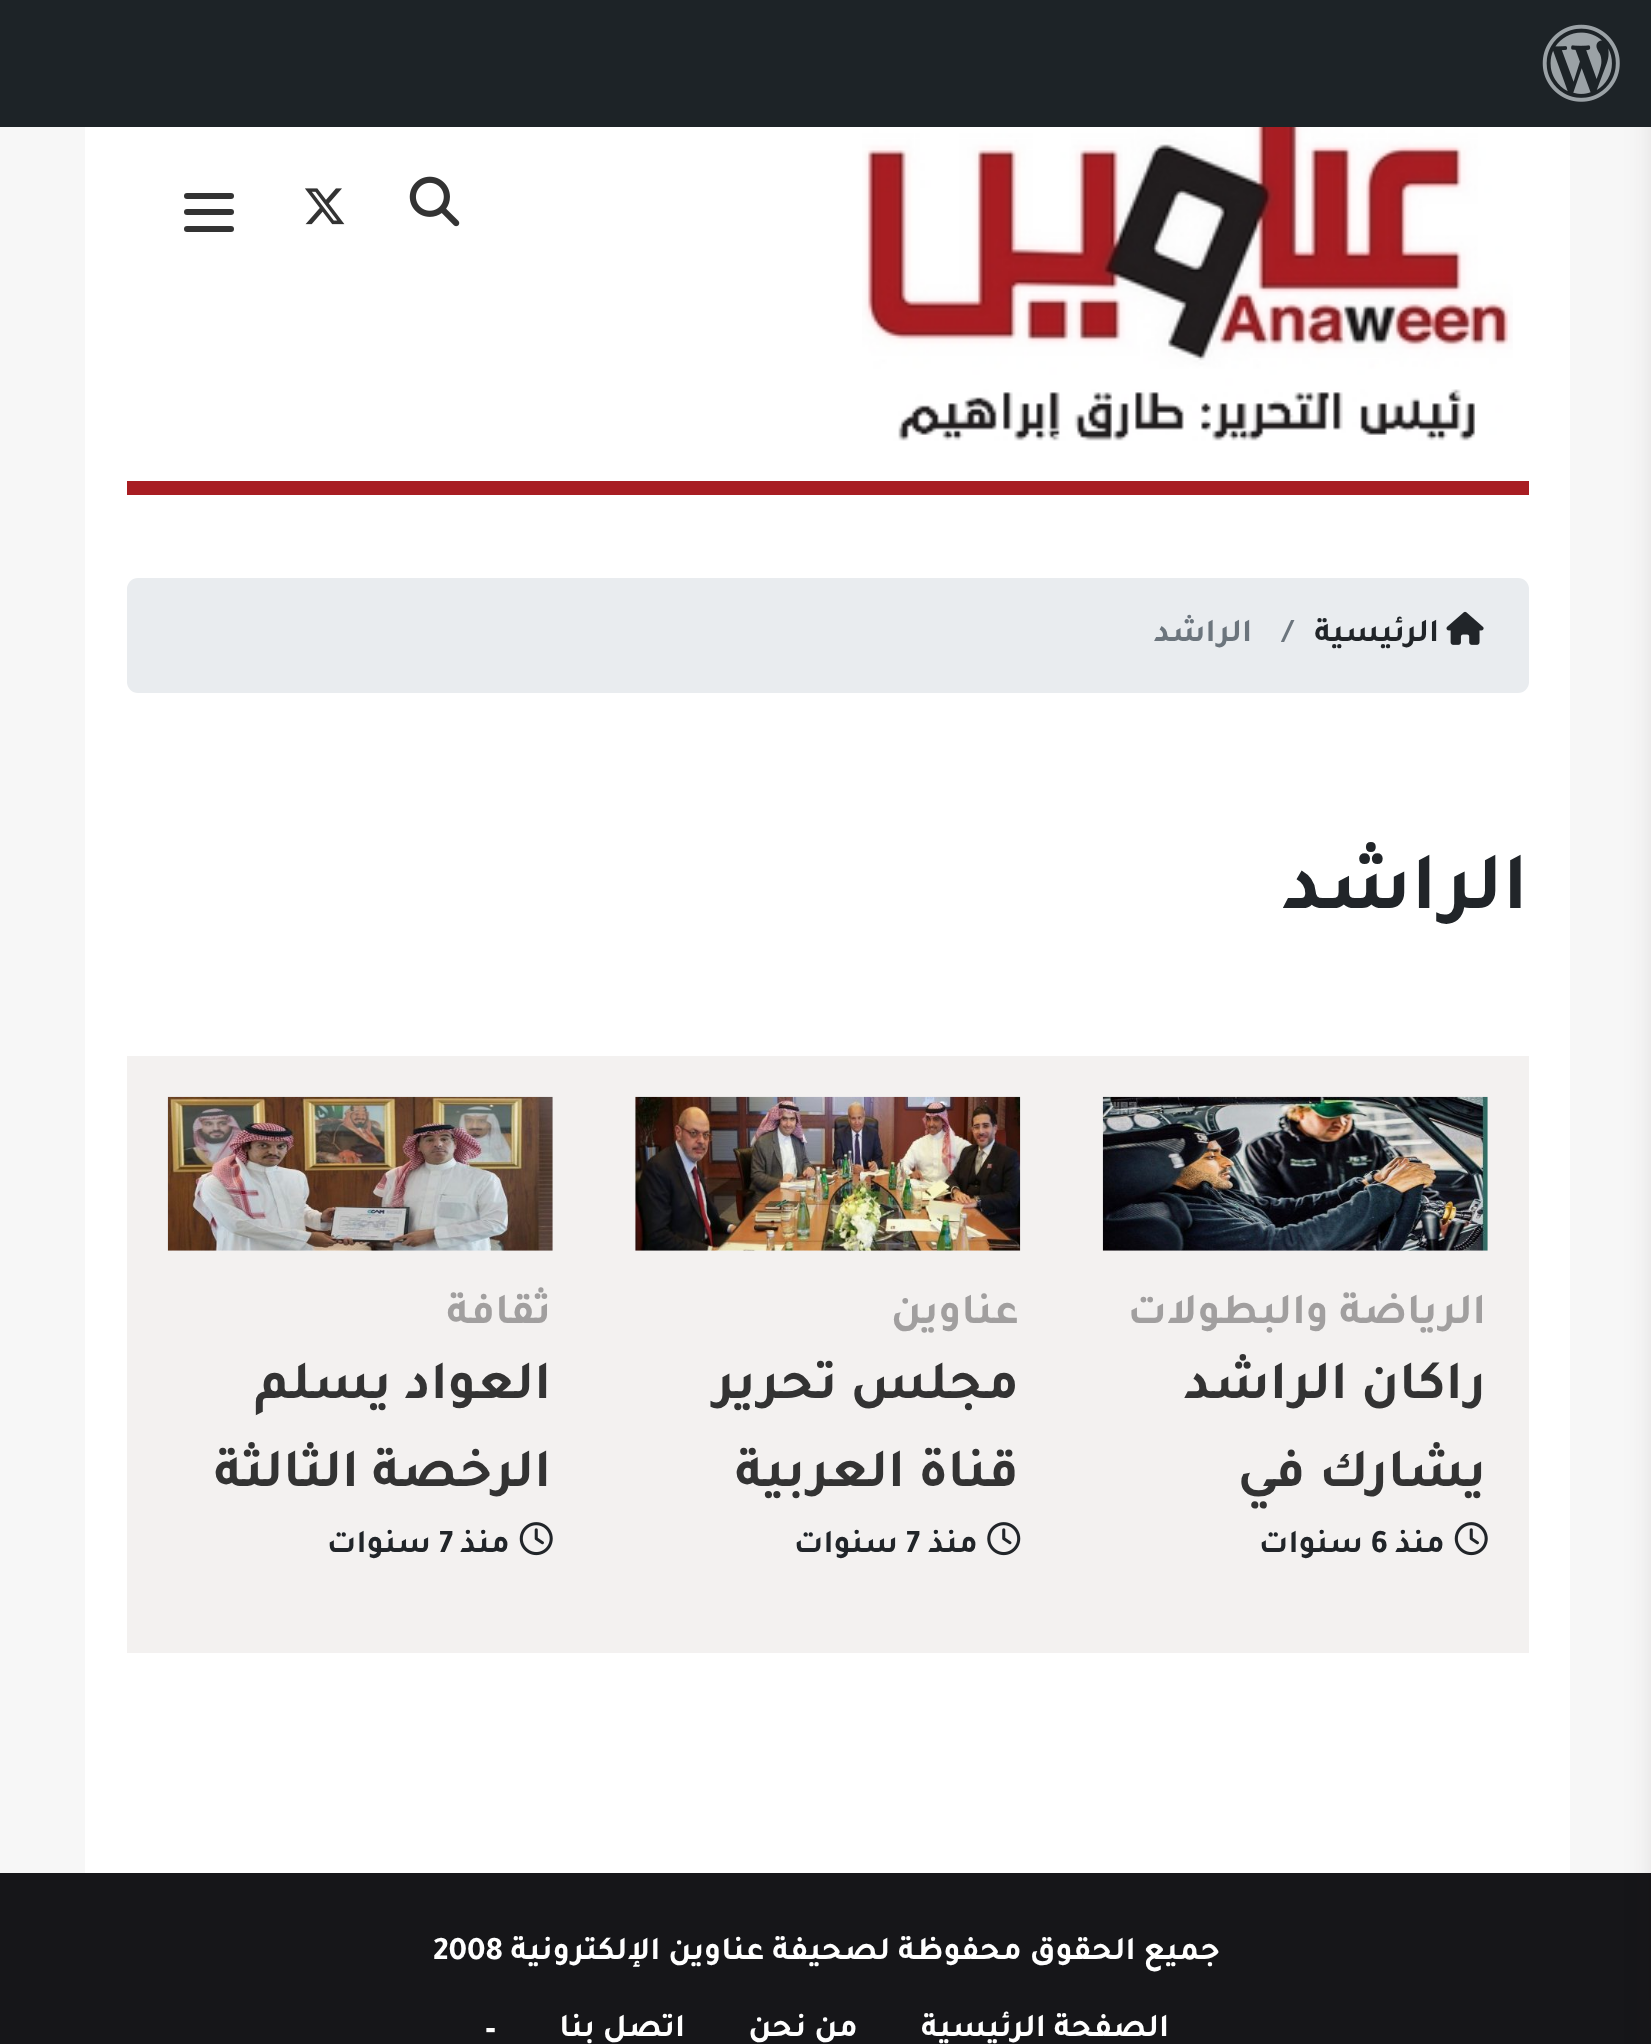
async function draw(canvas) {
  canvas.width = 1651
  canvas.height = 2044
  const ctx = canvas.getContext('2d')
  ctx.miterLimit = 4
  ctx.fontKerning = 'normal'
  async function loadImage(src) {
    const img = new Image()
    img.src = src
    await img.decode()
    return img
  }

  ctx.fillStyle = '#f7f7f7'
  ctx.fillRect(0, 0, 1651, 2044)
  ctx.fillStyle = '#161619'
  ctx.fillRect(0, 1873, 1651, 171)
  ctx.fillStyle = '#211717ad'
  ctx.filter = 'blur(27.5px)'
  ctx.beginPath()
  ctx.rect(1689, 0, 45, 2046)
  ctx.fill()
  ctx.filter = 'none'
  ctx.fillStyle = '#1d2327'
  ctx.fillRect(0, 0, 1651, 127)
  ctx.drawImage(await loadImage('image0.png'), 1542, 24, 78, 78)
  ctx.fillStyle = '#fff'
  ctx.fillRect(85, 127, 1485, 1746)
  ctx.fillStyle = '#a81d22'
  ctx.fillRect(127, 481, 1402, 14)
  ctx.drawImage(await loadImage('image1.png'), 862, 127, 651, 314)
  ctx.drawImage(await loadImage('image2.png'), 409, 176, 51, 51)
  ctx.drawImage(await loadImage('image3.png'), 305, 188, 40, 37)
  ctx.fillStyle = '#333'
  ctx.beginPath()
  ctx.roundRect(184, 193, 50, 6, 3)
  ctx.fill()
  ctx.beginPath()
  ctx.roundRect(184, 209, 50, 6, 3)
  ctx.fill()
  ctx.beginPath()
  ctx.roundRect(184, 226, 50, 6, 3)
  ctx.fill()
  ctx.fillStyle = '#e9ecef'
  ctx.beginPath()
  ctx.roundRect(127, 578, 1402, 115, 11)
  ctx.fill()
  ctx.drawImage(await loadImage('image4.png'), 1446, 611, 38, 34)
  ctx.direction = 'rtl'
  ctx.font = 'bold 33px Tajawal'
  ctx.fillStyle = '#212529'
  ctx.fillText('الرئيسية', 1439, 641)
  ctx.direction = 'ltr'
  ctx.fillStyle = '#6c757d'
  ctx.fillText('/', 1282, 641)
  ctx.direction = 'rtl'
  ctx.fillText('الراشد', 1252, 641)
  ctx.font = 'bold 82.5px Tajawal'
  ctx.fillStyle = '#212529'
  ctx.fillText('الراشد', 1528, 908)
  ctx.fillStyle = '#f3f1f0'
  ctx.fillRect(127, 1056, 1402, 597)
  ctx.drawImage(await loadImage('image5.png'), 1102, 1096, 386, 155)
  ctx.font = 'bold 44px Tajawal'
  ctx.fillStyle = '#a19f9f'
  ctx.fillText('الرياضة والبطولات', 1486, 1323)
  ctx.font = 'bold 55px Tajawal'
  ctx.fillStyle = '#333'
  ctx.fillText('راكان الراشد', 1486, 1398)
  ctx.fillText('يشارك في', 1486, 1486)
  ctx.drawImage(await loadImage('image6.png'), 1454, 1522, 34, 34)
  ctx.font = 'bold 33px Tajawal'
  ctx.fillStyle = '#212529'
  ctx.fillText('منذ', 1445, 1552)
  ctx.direction = 'ltr'
  ctx.fillText('6', 1371, 1552)
  ctx.direction = 'rtl'
  ctx.fillText('سنوات', 1363, 1552)
  ctx.drawImage(await loadImage('image7.png'), 635, 1096, 386, 155)
  ctx.font = 'bold 44px Tajawal'
  ctx.fillStyle = '#a19f9f'
  ctx.fillText('عناوين', 1019, 1323)
  ctx.font = 'bold 55px Tajawal'
  ctx.fillStyle = '#333'
  ctx.fillText('مجلس تحرير', 1019, 1398)
  ctx.fillText('قناة العربية', 1019, 1486)
  ctx.drawImage(await loadImage('image8.png'), 987, 1522, 34, 34)
  ctx.font = 'bold 33px Tajawal'
  ctx.fillStyle = '#212529'
  ctx.fillText('منذ', 978, 1552)
  ctx.direction = 'ltr'
  ctx.fillText('7', 906, 1552)
  ctx.direction = 'rtl'
  ctx.fillText('سنوات', 898, 1552)
  ctx.drawImage(await loadImage('image9.png'), 167, 1096, 386, 155)
  ctx.font = 'bold 44px Tajawal'
  ctx.fillStyle = '#a19f9f'
  ctx.fillText('ثقافة', 551, 1323)
  ctx.font = 'bold 55px Tajawal'
  ctx.fillStyle = '#333'
  ctx.fillText('العواد يسلم', 551, 1398)
  ctx.fillText('الرخصة الثالثة', 551, 1486)
  ctx.drawImage(await loadImage('image6.png'), 519, 1522, 34, 34)
  ctx.font = 'bold 33px Tajawal'
  ctx.fillStyle = '#212529'
  ctx.fillText('منذ', 510, 1552)
  ctx.direction = 'ltr'
  ctx.fillText('7', 439, 1552)
  ctx.direction = 'rtl'
  ctx.fillText('سنوات', 431, 1552)
  ctx.fillStyle = '#fff'
  ctx.fillText('جميع الحقوق محفوظة لصحيفة عناوين الإلكترونية', 1220, 1959)
  ctx.direction = 'ltr'
  ctx.fillText('2008', 433, 1959)
  ctx.direction = 'rtl'
  ctx.fillText('الصفحة الرئيسية', 1169, 2036)
  ctx.fillText('من نحن', 858, 2036)
  ctx.fillText('اتصل بنا', 685, 2036)
  ctx.direction = 'ltr'
  ctx.fillText('–', 484, 2036)
}

draw(document.querySelector('canvas'))
